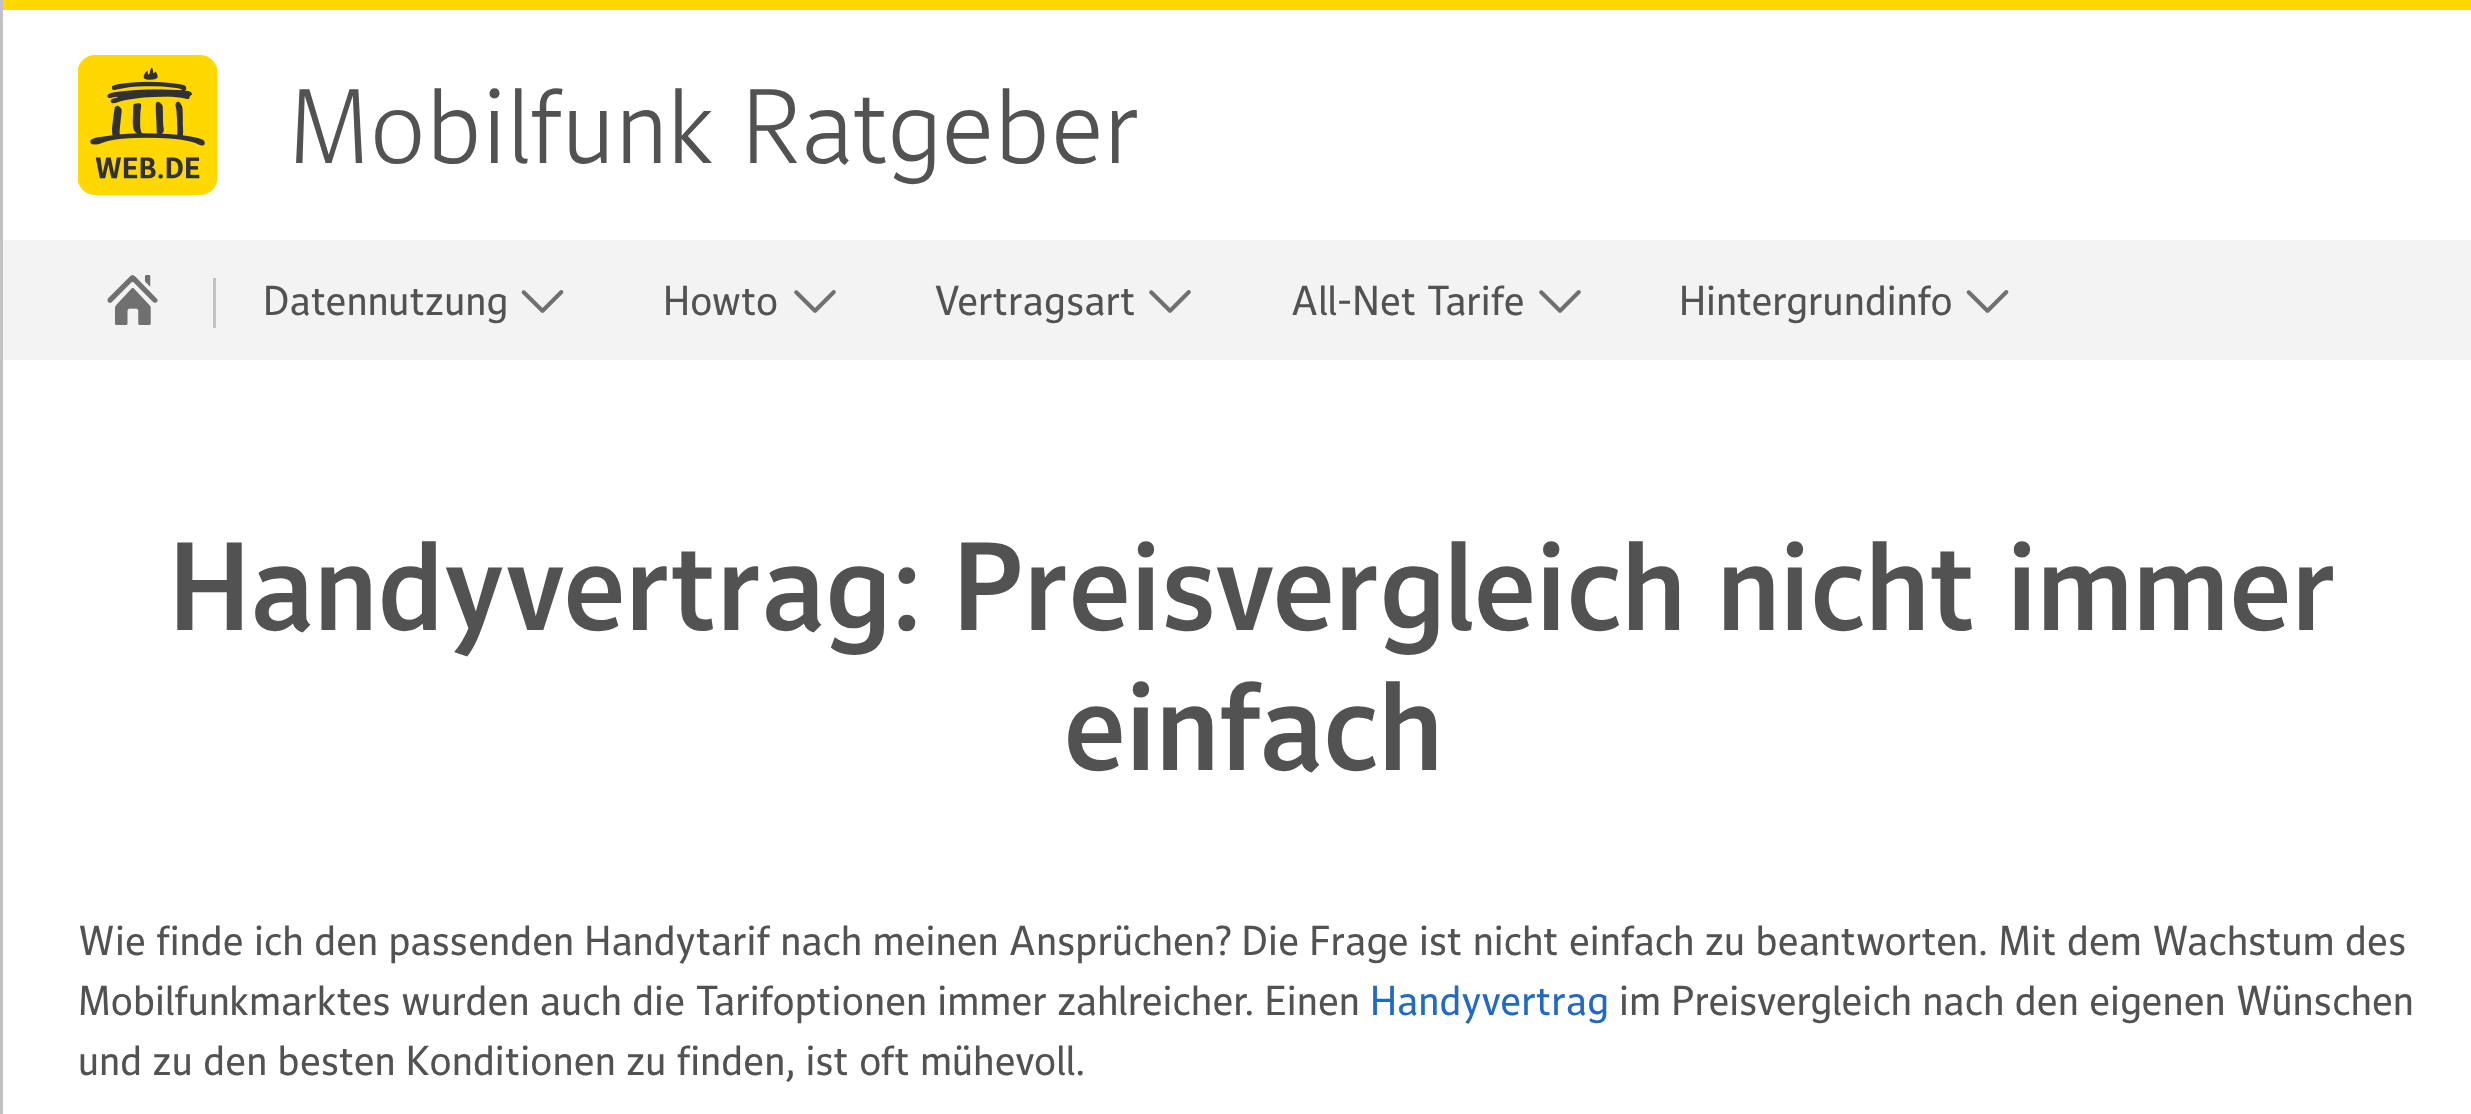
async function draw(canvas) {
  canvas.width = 2471
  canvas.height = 1114
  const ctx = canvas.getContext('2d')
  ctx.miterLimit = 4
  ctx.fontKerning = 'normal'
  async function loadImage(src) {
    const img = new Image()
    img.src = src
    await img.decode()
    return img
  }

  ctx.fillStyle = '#fff'
  ctx.fillRect(0, 0, 2471, 1114)
  ctx.fillStyle = '#c2c2c2'
  ctx.fillRect(0, 0, 3, 1114)
  ctx.fillStyle = '#ffd800'
  ctx.fillRect(3, 0, 2468, 10)
  ctx.drawImage(await loadImage('image0.png'), 78, 55, 140, 140)
  ctx.font = '100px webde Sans'
  ctx.fillStyle = '#525252'
  ctx.fillText('Mobilfunk Ratgeber', 288, 163)
  ctx.fillStyle = '#f3f3f3'
  ctx.fillRect(3, 240, 2468, 120)
  ctx.drawImage(await loadImage('image1.png'), 107, 275, 51, 50)
  ctx.fillStyle = '#c2c2c2'
  ctx.fillRect(213, 278, 3, 50)
  ctx.font = '40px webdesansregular'
  ctx.fillStyle = '#525252'
  ctx.fillText('Datennutzung', 263, 315)
  ctx.drawImage(await loadImage('image2.png'), 521, 290, 43, 23)
  ctx.fillText('Howto', 663, 315)
  ctx.drawImage(await loadImage('image3.png'), 794, 290, 42, 23)
  ctx.fillText('Vertragsart', 934, 315)
  ctx.drawImage(await loadImage('image3.png'), 1149, 290, 42, 23)
  ctx.fillText('All-Net Tarife', 1291, 315)
  ctx.drawImage(await loadImage('image3.png'), 1539, 290, 42, 23)
  ctx.fillText('Hintergrundinfo', 1679, 315)
  ctx.drawImage(await loadImage('image2.png'), 1966, 290, 43, 23)
  ctx.font = '120px "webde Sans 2"'
  ctx.fillText('Handyvertrag: Preisvergleich nicht immer', 169, 630)
  ctx.fillText('einfach', 1063, 770)
  ctx.font = '40px webdesansregular'
  ctx.fillText('Wie finde ich den passenden Handytarif nach meinen Ansprüchen? Die Frage ist nicht einfach zu beantworten. Mit dem Wachstum des', 78, 955)
  ctx.fillText('Mobilfunkmarktes wurden auch die Tarifoptionen immer zahlreicher. Einen', 78, 1015)
  ctx.fillStyle = '#2269c3'
  ctx.fillText('Handyvertrag', 1370, 1015)
  ctx.fillStyle = '#525252'
  ctx.fillText('im Preisvergleich nach den eigenen Wünschen', 1619, 1015)
  ctx.fillText('und zu den besten Konditionen zu finden, ist oft mühevoll.', 78, 1075)
}

draw(document.querySelector('canvas'))
